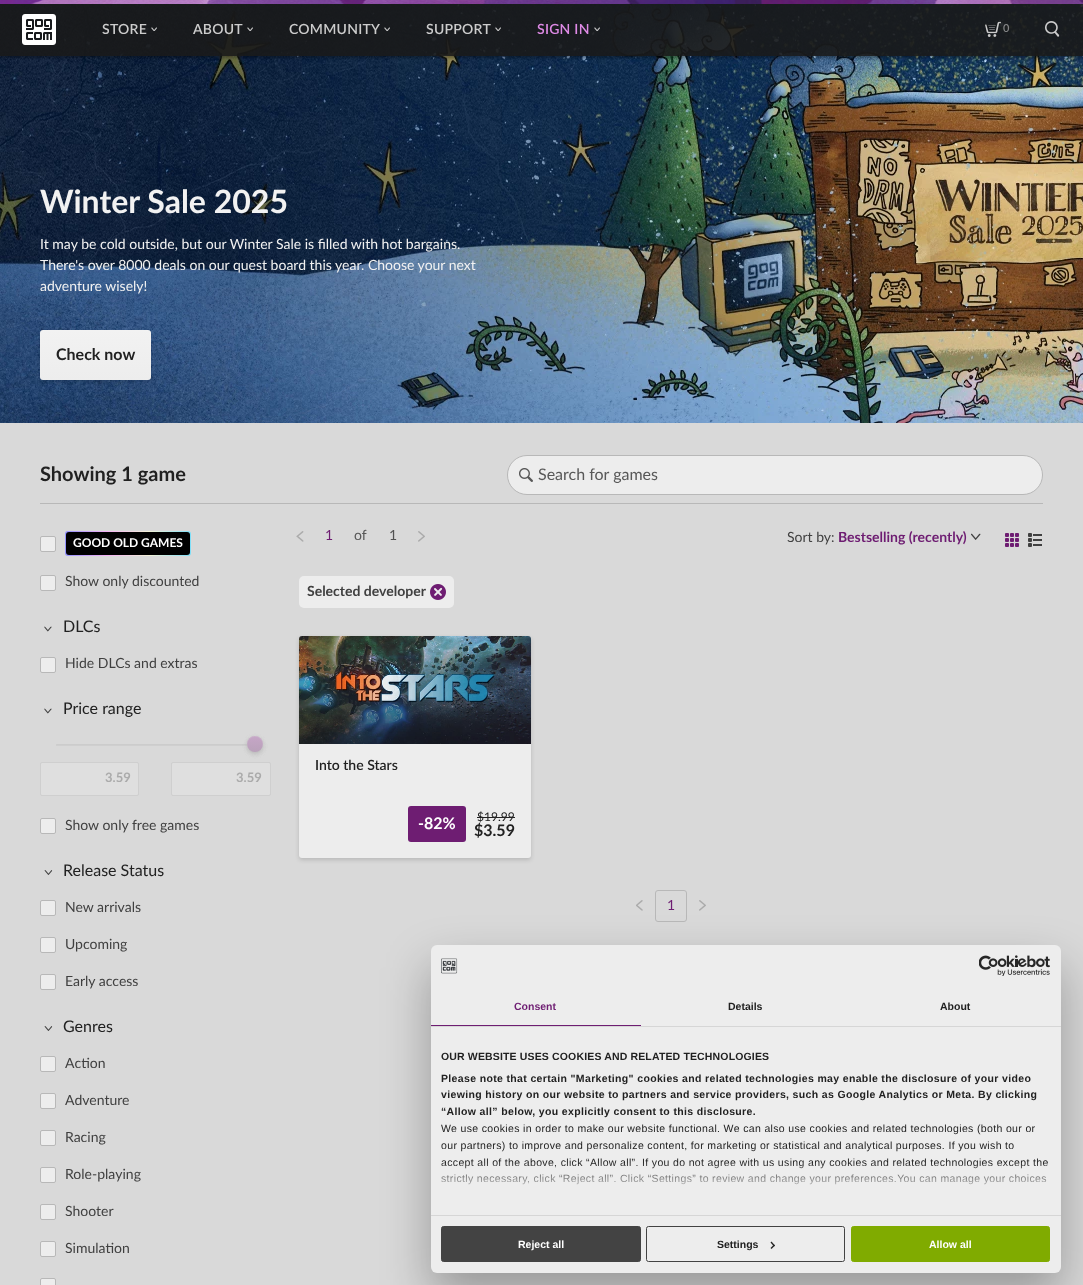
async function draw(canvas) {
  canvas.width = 1083
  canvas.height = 1285
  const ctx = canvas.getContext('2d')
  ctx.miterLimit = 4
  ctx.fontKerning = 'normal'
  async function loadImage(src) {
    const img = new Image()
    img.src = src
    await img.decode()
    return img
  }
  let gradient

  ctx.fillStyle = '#d9d9d9'
  ctx.fillRect(0, 0, 1083, 1285)
  ctx.drawImage(await loadImage('image9.png'), 0, 4, 1083, 419)
  ctx.save()
  ctx.beginPath()
  ctx.rect(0, 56, 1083, 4)
  ctx.clip()
  ctx.fillStyle = '#0000004d'
  ctx.filter = 'blur(1.5px)'
  ctx.beginPath()
  ctx.rect(-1, 0, 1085, 58)
  ctx.fill()
  ctx.filter = 'none'
  ctx.restore()
  ctx.fillStyle = '#1a1a1ae6'
  ctx.fillRect(0, 4, 1083, 52)
  ctx.drawImage(await loadImage('image0.png'), 0, 0, 1083, 4)
  ctx.drawImage(await loadImage('image1.png'), 22, 14, 34, 31)
  ctx.letterSpacing = '0.25px'
  ctx.font = '600 14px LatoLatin'
  ctx.fillStyle = '#ccc'
  ctx.fillText('STORE', 102, 34)
  ctx.drawImage(await loadImage('image2.png'), 151, 27, 6, 4)
  ctx.fillText('ABOUT', 193, 34)
  ctx.drawImage(await loadImage('image3.png'), 247, 27, 6, 4)
  ctx.fillText('COMMUNITY', 289, 34)
  ctx.drawImage(await loadImage('image4.png'), 384, 27, 6, 4)
  ctx.fillText('SUPPORT', 426, 34)
  ctx.drawImage(await loadImage('image5.png'), 495, 27, 6, 4)
  ctx.fillStyle = '#de8ae5'
  ctx.fillText('SIGN IN', 537, 34)
  ctx.drawImage(await loadImage('image6.png'), 594, 27, 6, 4)
  ctx.drawImage(await loadImage('image7.png'), 985, 21, 16, 16)
  ctx.font = '600 11px LatoLatin'
  ctx.fillStyle = '#868788'
  ctx.fillText('0', 1003, 32)
  ctx.drawImage(await loadImage('image8.png'), 1045, 21, 14, 16)
  ctx.letterSpacing = '0px'
  ctx.font = 'bold 32px LatoLatin'
  ctx.fillStyle = '#f2f2f2'
  ctx.fillText('Winter Sale 2025', 40, 213)
  ctx.font = '14px LatoLatin'
  ctx.fillText('It may be cold outside, but our Winter Sale is filled with hot bargains.', 40, 249)
  ctx.fillText('There\'s over 8000 deals on our quest board this year. Choose your next', 40, 270)
  ctx.fillText('adventure wisely!', 40, 291)
  ctx.fillStyle = '#00000026'
  ctx.filter = 'blur(2px)'
  ctx.beginPath()
  ctx.roundRect(40, 332, 111, 50, 3)
  ctx.fill()
  ctx.filter = 'none'
  gradient = ctx.createLinearGradient(96, 330, 96, 380)
  gradient.addColorStop(0, '#f2f2f2')
  gradient.addColorStop(1, '#ededed')
  ctx.fillStyle = gradient
  ctx.beginPath()
  ctx.roundRect(40, 330, 111, 50, 3)
  ctx.fill()
  ctx.font = 'bold 16px LatoLatin'
  ctx.fillStyle = '#212121'
  ctx.fillText('Check now', 56, 360)
  ctx.fillStyle = '#b8b8b8'
  ctx.fillRect(40, 503, 1003, 1)
  ctx.font = 'bold 20px LatoLatin'
  ctx.fillStyle = '#212121'
  ctx.fillText('Showing 1 game', 40, 481)
  ctx.fillStyle = '#ededed'
  ctx.beginPath()
  ctx.roundRect(507.5, 455.5, 535, 39, 19.5)
  ctx.fill()
  ctx.strokeStyle = '#b8b8b8'
  ctx.stroke()
  ctx.drawImage(await loadImage('image10.png'), 519, 468, 14, 14)
  ctx.font = '16px LatoLatin'
  ctx.fillStyle = '#585858'
  ctx.fillText('Search for games', 538, 480)
  ctx.fillStyle = '#ededed'
  ctx.beginPath()
  ctx.roundRect(40.5, 536.5, 15, 15, 1.5)
  ctx.fill()
  ctx.stroke()
  gradient = ctx.createLinearGradient(65, 544, 191, 544)
  gradient.addColorStop(0, '#9493fe')
  gradient.addColorStop(0.33, '#f3b1f3')
  gradient.addColorStop(0.67, '#f2f1d6')
  gradient.addColorStop(1, '#7edff9')
  ctx.fillStyle = gradient
  ctx.beginPath()
  ctx.roundRect(65, 531, 126, 25, 3)
  ctx.fill()
  ctx.fillStyle = '#000'
  ctx.beginPath()
  ctx.roundRect(66, 532, 124, 23, 3)
  ctx.fill()
  ctx.font = 'bold 12px LatoLatin'
  ctx.fillStyle = '#fff'
  ctx.fillText('GOOD OLD GAMES', 73, 547)
  ctx.fillStyle = '#ededed'
  ctx.beginPath()
  ctx.roundRect(40.5, 575.5, 15, 15, 1.5)
  ctx.fill()
  ctx.stroke()
  ctx.font = '14px LatoLatin'
  ctx.fillStyle = '#404040'
  ctx.fillText('Show only discounted', 65, 586)
  ctx.drawImage(await loadImage('image11.png'), 44, 626, 8, 6)
  ctx.font = '16px LatoLatin'
  ctx.fillStyle = '#212121'
  ctx.fillText('DLCs', 63, 632)
  ctx.fillStyle = '#ededed'
  ctx.beginPath()
  ctx.roundRect(40.5, 657.5, 15, 15, 1.5)
  ctx.fill()
  ctx.stroke()
  ctx.font = '14px LatoLatin'
  ctx.fillStyle = '#404040'
  ctx.fillText('Hide DLCs and extras', 65, 668)
  ctx.drawImage(await loadImage('image11.png'), 44, 708, 8, 6)
  ctx.font = '16px LatoLatin'
  ctx.fillStyle = '#212121'
  ctx.fillText('Price range', 63, 714)
  ctx.fillStyle = '#cfcfcf'
  ctx.beginPath()
  ctx.roundRect(56, 744, 199, 2, 1)
  ctx.fill()
  ctx.fillStyle = '#ccc'
  ctx.beginPath()
  ctx.moveTo(57, 745)
  ctx.lineTo(254, 745)
  ctx.lineTo(255, 746)
  ctx.bezierCurveTo(255, 745, 255, 744, 254, 744)
  ctx.lineTo(57, 744)
  ctx.bezierCurveTo(56, 744, 56, 745, 56, 746)
  ctx.closePath()
  ctx.fill()
  ctx.fillStyle = '#98989840'
  ctx.filter = 'blur(2px)'
  ctx.beginPath()
  ctx.roundRect(247, 738, 16, 16, 8)
  ctx.fill()
  ctx.filter = 'none'
  ctx.filter = 'blur(2px)'
  ctx.beginPath()
  ctx.roundRect(247, 738, 16, 16, 8)
  ctx.fill()
  ctx.filter = 'none'
  gradient = ctx.createLinearGradient(255, 736, 255, 752)
  gradient.addColorStop(0, '#c6a6c7')
  gradient.addColorStop(1, '#b9a1ba')
  ctx.fillStyle = gradient
  ctx.beginPath()
  ctx.arc(255, 744, 8, 0, 2 * Math.PI)
  ctx.fill()
  ctx.fillStyle = '#e4e4e426'
  ctx.beginPath()
  ctx.moveTo(255, 737)
  ctx.bezierCurveTo(261, 737, 263.5, 743, 262, 747.5)
  ctx.bezierCurveTo(263, 745.5, 263.5, 743, 262.5, 741)
  ctx.bezierCurveTo(258, 730.5, 243, 738, 248, 747.5)
  ctx.bezierCurveTo(246.5, 743, 249, 737, 255, 737)
  ctx.closePath()
  ctx.fill()
  ctx.fillStyle = '#dfdfdf'
  ctx.beginPath()
  ctx.roundRect(40.5, 762.5, 98, 33, 1.5)
  ctx.fill()
  ctx.strokeStyle = '#cfcfcf'
  ctx.stroke()
  ctx.font = 'bold 13px LatoLatin'
  ctx.fillStyle = '#ababab'
  ctx.fillText('3.59', 105, 782)
  ctx.fillStyle = '#dfdfdf'
  ctx.beginPath()
  ctx.roundRect(171.5, 762.5, 99, 33, 1.5)
  ctx.fill()
  ctx.stroke()
  ctx.fillStyle = '#ababab'
  ctx.fillText('3.59', 236, 782)
  ctx.fillStyle = '#ededed'
  ctx.beginPath()
  ctx.roundRect(40.5, 818.5, 15, 15, 1.5)
  ctx.fill()
  ctx.strokeStyle = '#b8b8b8'
  ctx.stroke()
  ctx.font = '14px LatoLatin'
  ctx.fillStyle = '#404040'
  ctx.fillText('Show only free games', 65, 830)
  ctx.drawImage(await loadImage('image12.png'), 44, 870, 9, 5)
  ctx.font = '16px LatoLatin'
  ctx.fillStyle = '#212121'
  ctx.fillText('Release Status', 63, 876)
  ctx.fillStyle = '#ededed'
  ctx.beginPath()
  ctx.roundRect(40.5, 900.5, 15, 15, 1.5)
  ctx.fill()
  ctx.stroke()
  ctx.font = '14px LatoLatin'
  ctx.fillStyle = '#404040'
  ctx.fillText('New arrivals', 65, 912)
  ctx.fillStyle = '#ededed'
  ctx.beginPath()
  ctx.roundRect(40.5, 937.5, 15, 15, 1.5)
  ctx.fill()
  ctx.stroke()
  ctx.fillStyle = '#404040'
  ctx.fillText('Upcoming', 65, 949)
  ctx.fillStyle = '#ededed'
  ctx.beginPath()
  ctx.roundRect(40.5, 974.5, 15, 15, 1.5)
  ctx.fill()
  ctx.stroke()
  ctx.fillStyle = '#404040'
  ctx.fillText('Early access', 65, 986)
  ctx.drawImage(await loadImage('image12.png'), 44, 1026, 9, 5)
  ctx.font = '16px LatoLatin'
  ctx.fillStyle = '#212121'
  ctx.fillText('Genres', 63, 1032)
  ctx.fillStyle = '#ededed'
  ctx.beginPath()
  ctx.roundRect(40.5, 1056.5, 15, 15, 1.5)
  ctx.fill()
  ctx.stroke()
  ctx.font = '14px LatoLatin'
  ctx.fillStyle = '#404040'
  ctx.fillText('Action', 65, 1068)
  ctx.fillStyle = '#ededed'
  ctx.beginPath()
  ctx.roundRect(40.5, 1093.5, 15, 15, 1.5)
  ctx.fill()
  ctx.stroke()
  ctx.fillStyle = '#404040'
  ctx.fillText('Adventure', 65, 1105)
  ctx.fillStyle = '#ededed'
  ctx.beginPath()
  ctx.roundRect(40.5, 1130.5, 15, 15, 1.5)
  ctx.fill()
  ctx.stroke()
  ctx.fillStyle = '#404040'
  ctx.fillText('Racing', 65, 1142)
  ctx.fillStyle = '#ededed'
  ctx.beginPath()
  ctx.roundRect(40.5, 1167.5, 15, 15, 1.5)
  ctx.fill()
  ctx.stroke()
  ctx.fillStyle = '#404040'
  ctx.fillText('Role-playing', 65, 1179)
  ctx.fillStyle = '#ededed'
  ctx.beginPath()
  ctx.roundRect(40.5, 1204.5, 15, 15, 1.5)
  ctx.fill()
  ctx.stroke()
  ctx.fillStyle = '#404040'
  ctx.fillText('Shooter', 65, 1216)
  ctx.fillStyle = '#ededed'
  ctx.beginPath()
  ctx.roundRect(40.5, 1241.5, 15, 15, 1.5)
  ctx.fill()
  ctx.stroke()
  ctx.fillStyle = '#404040'
  ctx.fillText('Simulation', 65, 1253)
  ctx.fillStyle = '#ededed'
  ctx.beginPath()
  ctx.roundRect(40.5, 1278.5, 15, 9, 1.5)
  ctx.fill()
  ctx.stroke()
  ctx.drawImage(await loadImage('image13.png'), 296, 531, 8, 11)
  ctx.fillStyle = '#6e1d72'
  ctx.fillText('1', 325, 540)
  ctx.fillStyle = '#585858'
  ctx.fillText('of', 354, 540)
  ctx.fillStyle = '#525252'
  ctx.fillText('1', 389, 540)
  ctx.drawImage(await loadImage('image14.png'), 418, 531, 7, 11)
  ctx.fillStyle = '#404040'
  ctx.fillText('Sort by:', 787, 542)
  ctx.font = 'bold 14px LatoLatin'
  ctx.fillStyle = '#6e1d72'
  ctx.fillText('Bestselling (recently)', 838, 542)
  ctx.drawImage(await loadImage('image15.png'), 971, 533, 10, 7)
  ctx.drawImage(await loadImage('image16.png'), 1005, 533, 14, 14)
  ctx.drawImage(await loadImage('image17.png'), 1028, 533, 14, 14)
  ctx.fillStyle = '#ededed'
  ctx.beginPath()
  ctx.roundRect(299, 576, 155, 32, 5)
  ctx.fill()
  ctx.fillStyle = '#404040'
  ctx.fillText('Selected developer', 307, 596)
  ctx.drawImage(await loadImage('image18.png'), 430, 584, 16, 16)
  ctx.fillStyle = '#00000026'
  ctx.filter = 'blur(2px)'
  ctx.beginPath()
  ctx.roundRect(299, 638, 232, 222, 3)
  ctx.fill()
  ctx.filter = 'none'
  ctx.fillStyle = '#ededed'
  ctx.beginPath()
  ctx.roundRect(299, 636, 232, 222, 3)
  ctx.fill()
  ctx.drawImage(await loadImage('image19.png'), 299, 636, 232, 108)
  ctx.font = '600 14px LatoLatin'
  ctx.fillStyle = '#212121'
  ctx.fillText('Into the Stars', 315, 770)
  ctx.fillStyle = '#6e1d72'
  ctx.beginPath()
  ctx.roundRect(408, 806, 58, 36, 3)
  ctx.fill()
  ctx.font = 'bold 16px LatoLatin'
  ctx.fillStyle = '#fff'
  ctx.fillText('-82%', 418, 829)
  ctx.font = '12px LatoLatin'
  ctx.fillStyle = '#212121'
  ctx.fillText('$19.99', 477, 821)
  ctx.fillRect(477, 817, 38, 1)
  ctx.font = 'bold 16px LatoLatin'
  ctx.fillText('$3.59', 474, 836)
  ctx.drawImage(await loadImage('image20.png'), 636, 900, 7, 11)
  ctx.beginPath()
  ctx.roundRect(655.5, 890.5, 31, 31, 2.5)
  ctx.stroke()
  ctx.font = '14px LatoLatin'
  ctx.fillStyle = '#6e1d72'
  ctx.fillText('1', 667, 910)
  ctx.drawImage(await loadImage('image14.png'), 699, 900, 7, 11)
  ctx.fillStyle = '#0000004d'
  ctx.filter = 'blur(24px)'
  ctx.beginPath()
  ctx.roundRect(431, 967, 630, 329, 6)
  ctx.fill()
  ctx.filter = 'none'
  ctx.fillStyle = '#ededed'
  ctx.beginPath()
  ctx.roundRect(431, 945, 630, 328, 6)
  ctx.fill()
  ctx.drawImage(await loadImage('image21.png'), 441, 958, 17, 16)
  ctx.drawImage(await loadImage('image22.png'), 979, 955, 71, 21)
  ctx.fillStyle = '#d6d6d6'
  ctx.fillRect(431, 1026, 630, 1)
  ctx.fillStyle = '#6e1d72'
  ctx.fillRect(431, 1025, 210, 1)
  ctx.font = 'bold 10.5px Liberation Sans'
  ctx.fillText('Consent', 514, 1010)
  ctx.fillStyle = '#212121'
  ctx.fillText('Details', 728, 1010)
  ctx.fillText('About', 940, 1010)
  ctx.fillStyle = '#d6d6d6'
  ctx.fillRect(431, 1215, 630, 1)
  ctx.letterSpacing = '0.15px'
  ctx.fillStyle = '#212121'
  ctx.fillText('OUR WEBSITE USES COOKIES AND RELATED TECHNOLOGIES', 441, 1060)
  ctx.letterSpacing = '0.35px'
  ctx.fillText('Please note that certain "Marketing" cookies and related technologies may enable the disclosure of your video', 441, 1082)
  ctx.fillText('viewing history on our website to partners and service providers, such as Google Analytics or Meta. By clicking', 441, 1098)
  ctx.fillText('“Allow all” below, you explicitly consent to this disclosure.', 441, 1115)
  ctx.font = '10.5px Liberation Sans'
  ctx.fillText('We use cookies in order to make our website functional. We can also use cookies and related technologies (both our or', 441, 1132)
  ctx.fillText('our partners) to improve and personalize content, for marketing or statistical and analytical purposes. If you wish to', 441, 1149)
  ctx.fillText('accept all of the above, click “Allow all”. If you do not agree with us using any cookies and related technologies except the', 441, 1166)
  ctx.fillText('strictly necessary, click “Reject all”. Click “Settings” to review and change your preferences.You can manage your choices', 441, 1182)
  gradient = ctx.createLinearGradient(741, 1215, 741, 1162)
  gradient.addColorStop(0, '#ededed')
  gradient.addColorStop(0.5, '#edededcc')
  gradient.addColorStop(1, '#ededed00')
  ctx.fillStyle = gradient
  ctx.fillRect(441, 1163, 607, 22)
  ctx.fillStyle = '#434343'
  ctx.beginPath()
  ctx.roundRect(441.5, 1226.5, 199, 35, 2)
  ctx.fill()
  ctx.strokeStyle = '#434343'
  ctx.stroke()
  ctx.letterSpacing = '0px'
  ctx.font = 'bold 10.5px Liberation Sans'
  ctx.fillStyle = '#fff'
  ctx.fillText('Reject all', 518, 1248)
  ctx.beginPath()
  ctx.roundRect(646.5, 1226.5, 198, 35, 2)
  ctx.stroke()
  ctx.fillStyle = '#212121'
  ctx.fillText('Settings', 717, 1248)
  ctx.fillStyle = '#262626'
  ctx.beginPath()
  ctx.moveTo(771.5, 1241.5)
  ctx.lineTo(775, 1245.5)
  ctx.lineTo(774, 1246.5)
  ctx.lineTo(770.5, 1242.5)
  ctx.closePath()
  ctx.fill()
  ctx.beginPath()
  ctx.moveTo(774, 1244.5)
  ctx.lineTo(775, 1245.5)
  ctx.lineTo(771.5, 1249)
  ctx.lineTo(770.5, 1248)
  ctx.closePath()
  ctx.fill()
  ctx.fillStyle = '#80ab00'
  ctx.beginPath()
  ctx.roundRect(851.5, 1226.5, 198, 35, 2)
  ctx.fill()
  ctx.strokeStyle = '#80ab00'
  ctx.stroke()
  ctx.fillStyle = '#fff'
  ctx.fillText('Allow all', 929, 1248)
}

draw(document.querySelector('canvas'))
